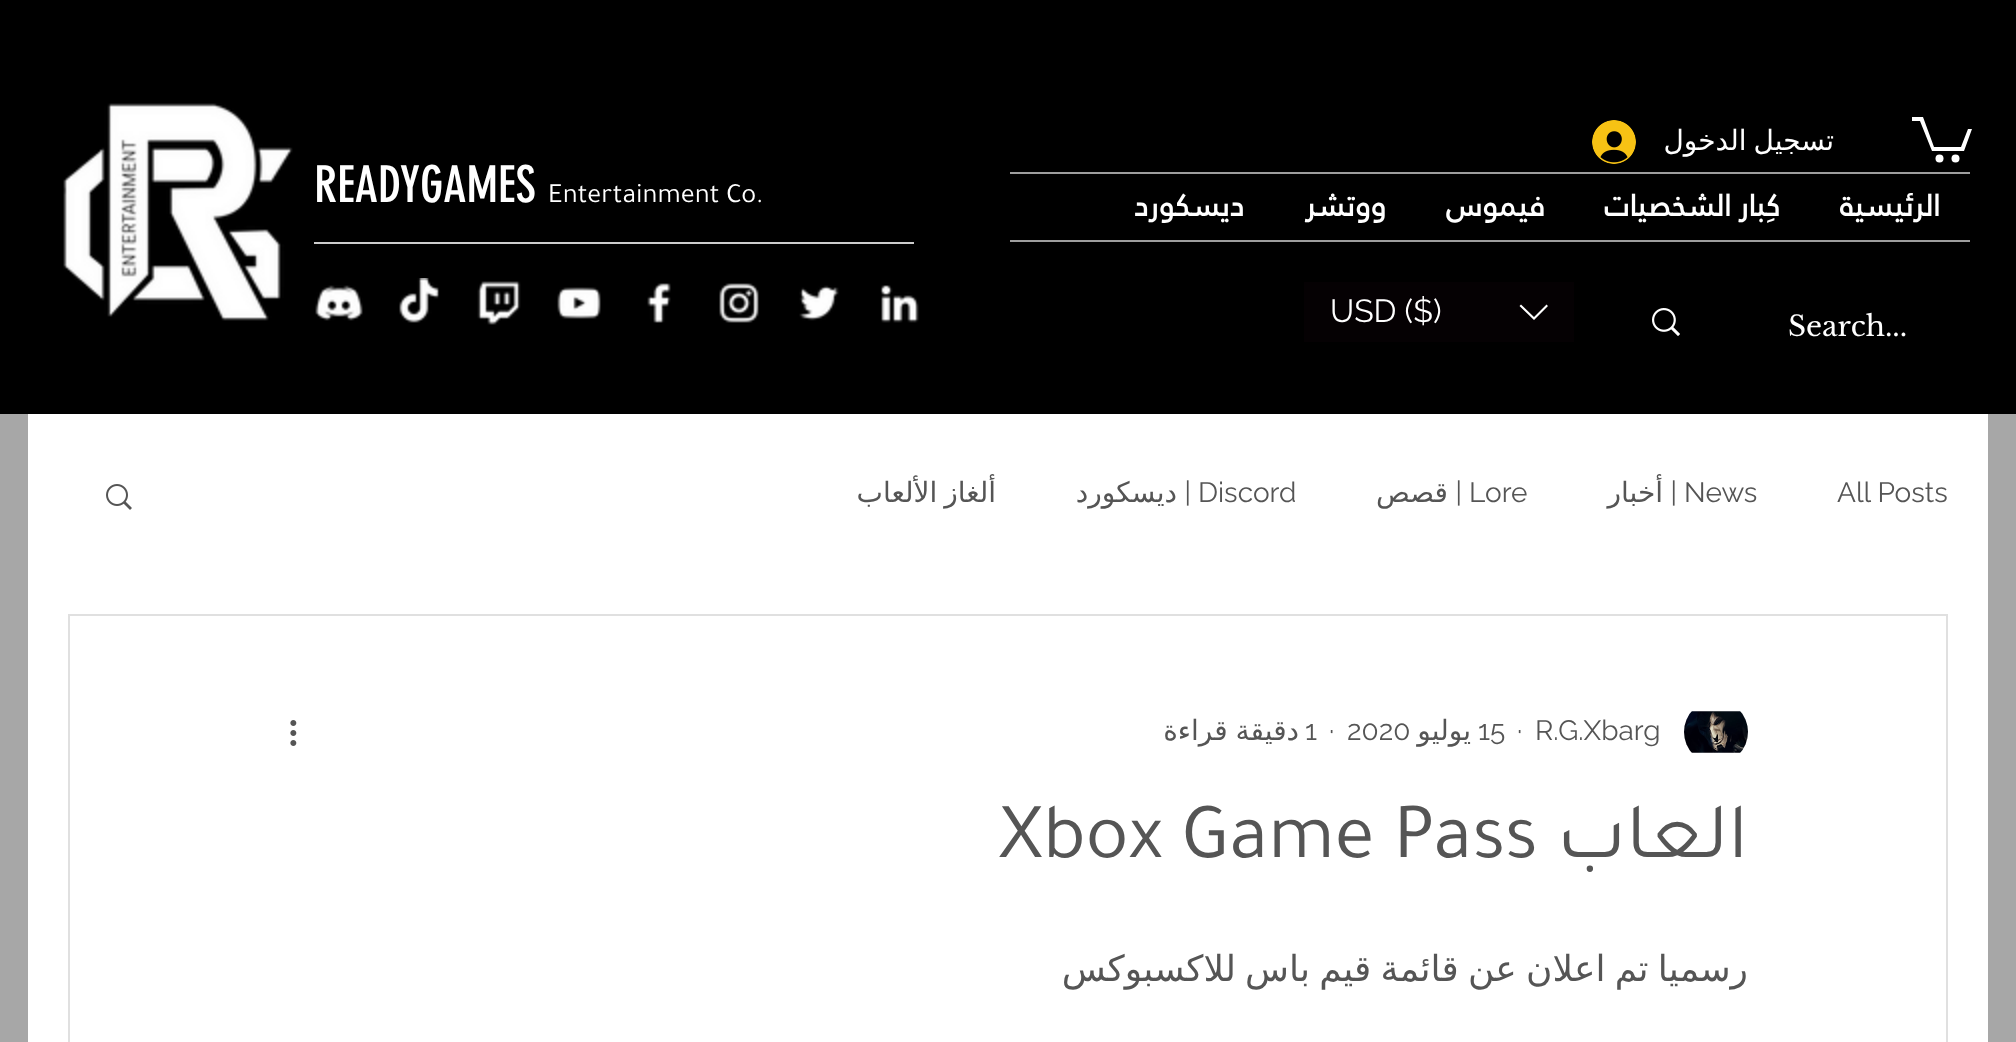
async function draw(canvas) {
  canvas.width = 2016
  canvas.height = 1042
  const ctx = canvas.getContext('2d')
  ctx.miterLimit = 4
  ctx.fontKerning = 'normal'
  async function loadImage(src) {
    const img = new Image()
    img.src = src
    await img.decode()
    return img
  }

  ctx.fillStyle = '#a7a7a7'
  ctx.fillRect(0, 0, 2016, 1042)
  ctx.fillStyle = '#000'
  ctx.fillRect(0, 0, 2016, 414)
  ctx.fillStyle = '#fff'
  ctx.beginPath()
  ctx.moveTo(1972, 129)
  ctx.lineTo(1964, 151)
  ctx.lineTo(1932, 151)
  ctx.lineTo(1920, 121)
  ctx.lineTo(1912, 121)
  ctx.lineTo(1912, 117)
  ctx.lineTo(1923, 117)
  ctx.lineTo(1934, 147)
  ctx.lineTo(1961, 147)
  ctx.lineTo(1968, 129)
  ctx.fill()
  ctx.beginPath()
  ctx.arc(1955.5, 158.5, 4, 0, 2 * Math.PI)
  ctx.fill()
  ctx.beginPath()
  ctx.arc(1939.5, 158.5, 4, 0, 2 * Math.PI)
  ctx.fill()
  ctx.wordSpacing = '-2px'
  ctx.direction = 'rtl'
  ctx.font = '28px DejaVu Sans'
  ctx.fillText('تسجيل الدخول', 1834, 150)
  ctx.drawImage(await loadImage('image0.png'), 1592, 120, 44, 44)
  ctx.wordSpacing = '0px'
  ctx.direction = 'ltr'
  ctx.font = '28px Libre Baskerville'
  ctx.fillText('Search...', 1788, 336)
  ctx.drawImage(await loadImage('image1.png'), 1652, 308, 28, 28)
  ctx.fillStyle = '#9e9e9e'
  ctx.fillRect(1010, 172, 960, 2)
  ctx.fillRect(1010, 240, 960, 2)
  ctx.direction = 'rtl'
  ctx.font = 'bold 30px "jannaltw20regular"'
  ctx.fillStyle = '#fff'
  ctx.fillText('الرئيسية', 1940, 216)
  ctx.fillText('كِبار الشخصيات', 1780, 216)
  ctx.fillText('فيموس', 1545, 216)
  ctx.fillText('ووتشر', 1386, 216)
  ctx.fillText('ديسكورد', 1244, 216)
  ctx.fillStyle = '#050103'
  ctx.fillRect(1304, 282, 270, 60)
  ctx.fillStyle = '#fff'
  ctx.beginPath()
  ctx.moveTo(1546.5, 304.5)
  ctx.lineTo(1548, 306)
  ctx.lineTo(1534, 320)
  ctx.lineTo(1519.5, 306)
  ctx.lineTo(1521, 304.5)
  ctx.lineTo(1534, 317)
  ctx.closePath()
  ctx.fill('evenodd')
  ctx.direction = 'ltr'
  ctx.font = '32px Raleway'
  ctx.fillText('USD ($)', 1330, 322)
  ctx.font = '28px Tajawal'
  ctx.fillText('Entertainment Co.', 548, 202)
  ctx.font = '50px "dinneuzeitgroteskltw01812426"'
  ctx.fillText('READYGAMES', 314, 202)
  ctx.drawImage(await loadImage('image2.png'), 63, 103, 230, 218)
  ctx.fillStyle = '#ccc'
  ctx.fillRect(314, 242, 600, 2)
  ctx.drawImage(await loadImage('image3.png'), 880, 285, 39, 38)
  ctx.drawImage(await loadImage('image4.png'), 799, 285, 40, 36)
  ctx.drawImage(await loadImage('image5.png'), 719, 283, 40, 40)
  ctx.drawImage(await loadImage('image6.png'), 647, 283, 24, 40)
  ctx.drawImage(await loadImage('image7.png'), 557, 287, 44, 32)
  ctx.drawImage(await loadImage('image8.png'), 477, 281, 44, 44)
  ctx.drawImage(await loadImage('image9.png'), 399, 278, 40, 45)
  ctx.drawImage(await loadImage('image10.png'), 315, 285, 48, 36)
  ctx.fillStyle = '#fff'
  ctx.fillRect(28, 414, 1960, 628)
  ctx.font = '28px Raleway'
  ctx.fillStyle = '#555'
  ctx.fillText('All Posts', 1837, 502)
  ctx.fillText('News', 1684, 502)
  ctx.direction = 'rtl'
  ctx.fillText('|', 1677, 502)
  ctx.font = '28px DejaVu Sans'
  ctx.fillText('أخبار', 1663, 502)
  ctx.direction = 'ltr'
  ctx.font = '28px Raleway'
  ctx.fillText('Lore', 1469, 502)
  ctx.direction = 'rtl'
  ctx.fillText('|', 1462, 502)
  ctx.font = '28px DejaVu Sans'
  ctx.fillText('قصص', 1448, 502)
  ctx.direction = 'ltr'
  ctx.font = '28px Raleway'
  ctx.fillText('Discord', 1198, 502)
  ctx.direction = 'rtl'
  ctx.fillText('|', 1191, 502)
  ctx.font = '28px DejaVu Sans'
  ctx.fillText('ديسكورد', 1177, 502)
  ctx.wordSpacing = '-2px'
  ctx.fillText('ألغاز الألعاب', 996, 502)
  ctx.drawImage(await loadImage('image11.png'), 106, 484, 26, 26)
  ctx.strokeStyle = '#e0e0e0'
  ctx.lineWidth = 2
  ctx.strokeRect(69, 615, 1878, 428)
  ctx.drawImage(await loadImage('image12.png'), 1684, 711, 64, 42)
  ctx.wordSpacing = '0px'
  ctx.direction = 'ltr'
  ctx.font = '28px Raleway'
  ctx.fillText('R.G.Xbarg', 1535, 740)
  ctx.fillText('·', 1517, 740)
  ctx.fillText('15', 1478, 740)
  ctx.direction = 'rtl'
  ctx.font = '28px DejaVu Sans'
  ctx.fillText('يوليو', 1471, 740)
  ctx.direction = 'ltr'
  ctx.font = '28px Raleway'
  ctx.fillText('2020', 1347, 740)
  ctx.fillText('·', 1329, 740)
  ctx.fillText('1', 1305, 740)
  ctx.wordSpacing = '-1px'
  ctx.direction = 'rtl'
  ctx.font = '28px DejaVu Sans'
  ctx.fillText('دقيقة قراءة', 1299, 740)
  ctx.drawImage(await loadImage('image13.png'), 290, 720, 7, 26)
  ctx.wordSpacing = '0px'
  ctx.font = '80px Tajawal'
  ctx.fillText('العاب', 1748, 857)
  ctx.direction = 'ltr'
  ctx.fillText('Xbox Game Pass', 998, 857)
  ctx.wordSpacing = '-2.25px'
  ctx.direction = 'rtl'
  ctx.font = '36px DejaVu Sans'
  ctx.fillText('رسميا تم اعلان عن قائمة قيم باس للاكسبوكس', 1748, 981)
}

draw(document.querySelector('canvas'))
